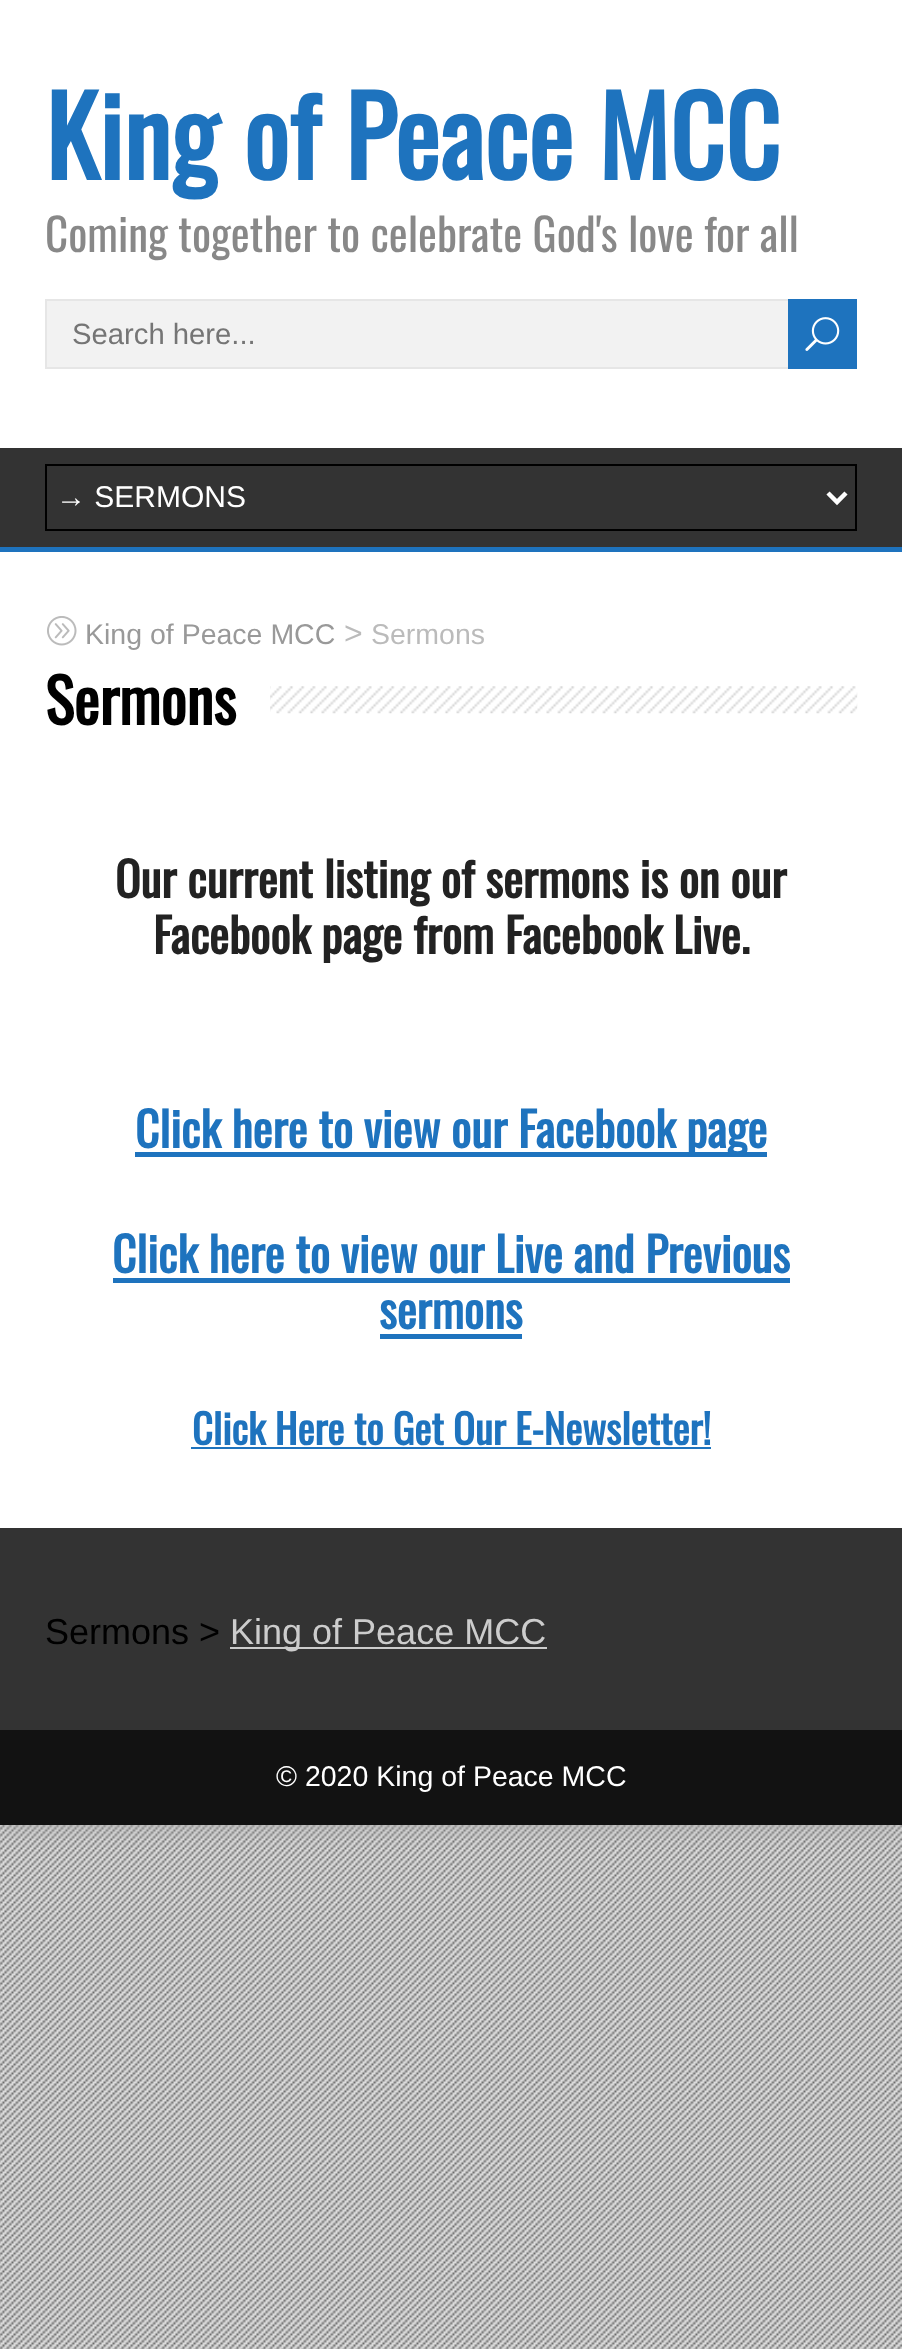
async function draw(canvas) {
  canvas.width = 902
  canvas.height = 2349
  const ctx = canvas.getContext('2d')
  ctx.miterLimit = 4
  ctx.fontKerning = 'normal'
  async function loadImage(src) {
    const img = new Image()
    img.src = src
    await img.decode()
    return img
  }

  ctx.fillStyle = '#dbdbdb'
  ctx.fillRect(0, 0, 902, 2349)
  ctx.drawImage(await loadImage('image3.png'), 0, 1825, 902, 524)
  ctx.fillStyle = '#aaa'
  ctx.filter = 'blur(11px)'
  ctx.beginPath()
  ctx.rect(0, 0, 902, 1825)
  ctx.fill()
  ctx.filter = 'none'
  ctx.fillStyle = '#fff'
  ctx.fillRect(0, 0, 902, 1528)
  ctx.font = 'bold 108px Oswald'
  ctx.fillStyle = '#1e73be'
  ctx.fillText('King of Peace MCC', 45, 180)
  ctx.font = '45px Oswald'
  ctx.fillStyle = '#888'
  ctx.fillText('Coming together to celebrate God\'s love for all', 45, 252)
  ctx.fillStyle = '#f2f2f2'
  ctx.fillRect(47, 301, 741, 66)
  ctx.strokeStyle = '#e6e6e6'
  ctx.lineWidth = 2
  ctx.strokeRect(46, 300, 806, 68)
  ctx.font = '29.25px Liberation Sans'
  ctx.fillStyle = '#757575'
  ctx.fillText('Search here...', 72, 344)
  ctx.fillStyle = '#1e73be'
  ctx.fillRect(788, 299, 69, 70)
  ctx.drawImage(await loadImage('image0.png'), 805, 317, 35, 34)
  ctx.fillStyle = '#333'
  ctx.fillRect(0, 448, 902, 99)
  ctx.fillStyle = '#1e73be'
  ctx.fillRect(0, 547, 902, 5)
  ctx.strokeStyle = '#000'
  ctx.strokeRect(46, 465, 810, 65)
  ctx.beginPath()
  ctx.moveTo(828, 493)
  ctx.lineTo(837, 502)
  ctx.lineTo(846, 493)
  ctx.strokeStyle = '#fff'
  ctx.lineWidth = 4.5
  ctx.stroke()
  ctx.font = '30px Liberation Sans'
  ctx.fillStyle = '#fff'
  ctx.fillText('→ SERMONS', 56, 507)
  ctx.drawImage(await loadImage('image1.png'), 47, 616, 30, 30)
  ctx.font = '28.5px Liberation Sans'
  ctx.fillStyle = '#999'
  ctx.fillText('King of Peace MCC', 85, 644)
  ctx.font = '32px Liberation Sans'
  ctx.fillStyle = '#bbb'
  ctx.fillText('>', 344, 644)
  ctx.font = '28.5px Liberation Sans'
  ctx.fillText('Sermons', 371, 644)
  ctx.drawImage(await loadImage('image2.png'), 270, 686, 588, 28)
  ctx.font = 'bold 61px Oswald'
  ctx.fillStyle = '#000'
  ctx.fillText('Sermons', 45, 725)
  ctx.font = 'bold 47.25px Oswald'
  ctx.fillStyle = '#222'
  ctx.fillText('Our current listing of sermons is on our', 115, 898)
  ctx.fillText('Facebook page from Facebook Live.', 153, 954)
  ctx.fillStyle = '#1e73be'
  ctx.fillRect(135, 1152, 632, 5)
  ctx.fillText('Click here to view our Facebook page', 135, 1148)
  ctx.fillText('Click here to view our Live and Previous', 112, 1273)
  ctx.fillRect(113, 1278, 677, 5)
  ctx.fillText('sermons', 379, 1329)
  ctx.fillRect(380, 1334, 142, 5)
  ctx.font = 'bold 40.5px Oswald'
  ctx.fillText('Click Here to Get Our E-Newsletter!', 192, 1445)
  ctx.fillRect(191, 1447, 520, 2)
  ctx.fillStyle = '#333'
  ctx.fillRect(0, 1528, 902, 202)
  ctx.font = '36px Liberation Sans'
  ctx.fillStyle = '#000'
  ctx.fillText('Sermons >', 45, 1644)
  ctx.fillStyle = '#ccc'
  ctx.fillRect(230, 1647, 317, 2)
  ctx.fillText('King of Peace MCC', 230, 1644)
  ctx.fillStyle = '#121212'
  ctx.fillRect(0, 1730, 902, 95)
  ctx.font = '28.5px Liberation Sans'
  ctx.fillStyle = '#fff'
  ctx.fillText('© 2020 King of Peace MCC', 276, 1786)
}

draw(document.querySelector('canvas'))
